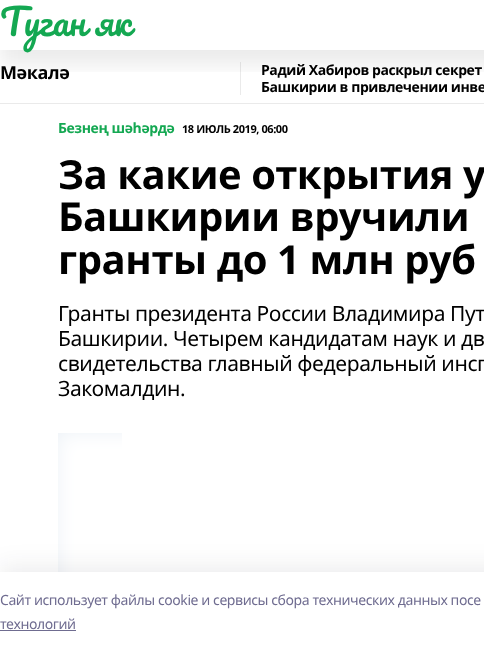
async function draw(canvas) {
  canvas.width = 484
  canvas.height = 652
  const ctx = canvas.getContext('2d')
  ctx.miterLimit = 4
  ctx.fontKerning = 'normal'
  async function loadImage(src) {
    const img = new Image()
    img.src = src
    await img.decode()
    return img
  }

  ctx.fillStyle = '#fff'
  ctx.fillRect(0, 0, 484, 652)
  ctx.fillStyle = '#eaeaea'
  ctx.fillRect(240, 62, 1, 33)
  ctx.save()
  ctx.beginPath()
  ctx.rect(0, 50, 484, 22)
  ctx.clip()
  ctx.fillStyle = '#00000014'
  ctx.filter = 'blur(10px)'
  ctx.beginPath()
  ctx.rect(0, 15, 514, 50)
  ctx.fill()
  ctx.filter = 'none'
  ctx.restore()
  ctx.letterSpacing = '-0.42px'
  ctx.font = '36px Pacifico'
  ctx.fillStyle = '#14a852'
  ctx.fillText('Туган як', 0, 36)
  ctx.fillStyle = '#eaeaea'
  ctx.fillRect(0, 103, 484, 1)
  ctx.font = 'bold 18px Noto Sans'
  ctx.fillStyle = '#000'
  ctx.fillText('Мәкалә', 0, 79)
  ctx.font = 'bold 14px Noto Sans'
  ctx.fillText('Радий Хабиров раскрыл секрет', 261, 75)
  ctx.save()
  ctx.beginPath()
  ctx.rect(241, 62, 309, 33)
  ctx.clip()
  ctx.fillText('Башкирии в привлечении инве', 261, 92)
  ctx.restore()
  ctx.fillStyle = '#14a852'
  ctx.fillText('Безнең шәһәрдә', 58, 133)
  ctx.font = 'bold 11px Noto Sans'
  ctx.fillStyle = '#000'
  ctx.fillText('18 ИЮЛЬ 2019, 06:00', 182, 133)
  ctx.font = 'bold 40px Noto Sans'
  ctx.fillText('За какие открытия у', 58, 189)
  ctx.fillText('Башкирии вручили', 58, 231)
  ctx.fillText('гранты до 1 млн руб', 58, 274)
  ctx.font = '21px Noto Sans'
  ctx.fillText('Гранты президента России Владимира Пут', 58, 321)
  ctx.fillText('Башкирии. Четырем кандидатам наук и дв', 58, 346)
  ctx.fillText('свидетельства главный федеральный инсп', 58, 371)
  ctx.fillText('Закомалдин.', 58, 396)
  ctx.fillStyle = '#edf2f7'
  ctx.fillRect(58, 433, 64, 139)
  ctx.drawImage(await loadImage('image0.png'), 58, 433, 64, 139)
  ctx.drawImage(await loadImage('image1.png'), 122, 433, 362, 139)
  ctx.fillStyle = '#14142b14'
  ctx.filter = 'blur(11.5px)'
  ctx.beginPath()
  ctx.rect(0, 566, 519, 80)
  ctx.fill()
  ctx.filter = 'none'
  ctx.fillStyle = '#fff'
  ctx.fillRect(0, 572, 484, 80)
  ctx.font = '14px Noto Sans'
  ctx.fillStyle = '#6f6c90'
  ctx.fillText('Cайт использует файлы cookie и сервисы сбора технических данных посе', 0, 605)
  ctx.fillText('технологий', 0, 629)
  ctx.fillRect(0, 630, 76, 1)
}

draw(document.querySelector('canvas'))
